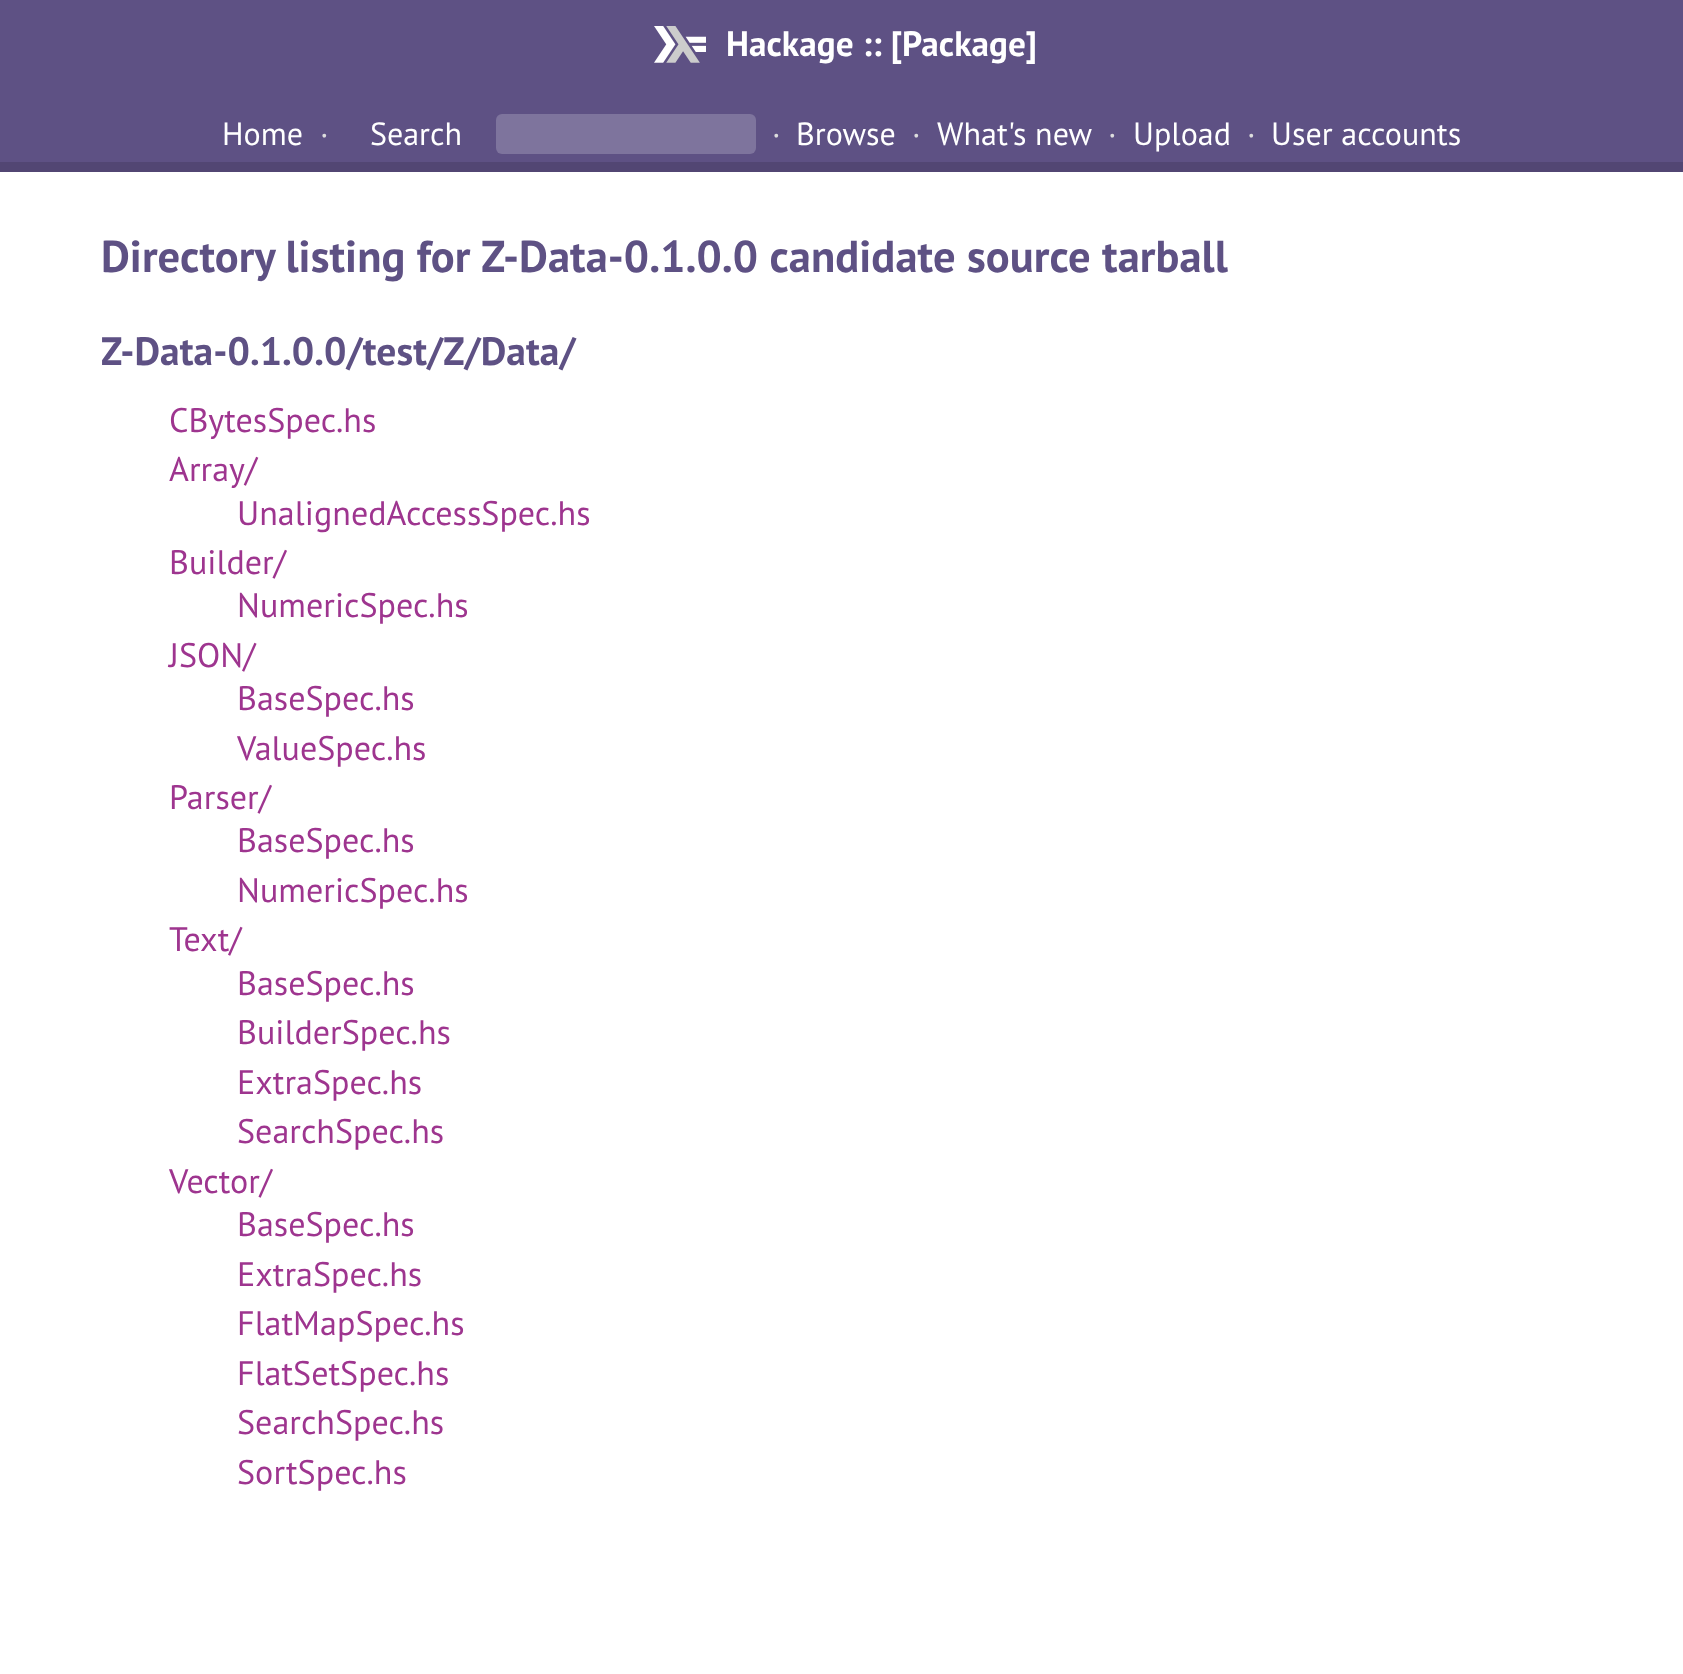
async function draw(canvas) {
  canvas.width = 1683
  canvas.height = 1674
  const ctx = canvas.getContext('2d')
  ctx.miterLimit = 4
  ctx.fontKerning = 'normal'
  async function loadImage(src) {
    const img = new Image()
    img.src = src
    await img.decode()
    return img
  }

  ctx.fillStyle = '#fff'
  ctx.fillRect(0, 0, 1683, 1674)
  ctx.fillStyle = '#5e5184'
  ctx.fillRect(0, 0, 1683, 162)
  ctx.fillStyle = '#524673'
  ctx.fillRect(0, 162, 1683, 10)
  ctx.drawImage(await loadImage('image0.png'), 654, 26, 52, 37)
  ctx.letterSpacing = '0.05px'
  ctx.font = 'bold 35.25px PT Sans'
  ctx.fillStyle = '#fff'
  ctx.fillText('Hackage :: [Package]', 726, 56)
  ctx.font = '32px PT Sans'
  ctx.fillText('Home', 222, 145)
  ctx.fillStyle = '#ddd'
  ctx.fillText('·', 320, 145)
  ctx.letterSpacing = '0px'
  ctx.fillStyle = '#fff'
  ctx.fillText('Search', 370, 145)
  ctx.fillStyle = '#7e749d'
  ctx.beginPath()
  ctx.roundRect(496, 114, 260, 40, 6)
  ctx.fill()
  ctx.letterSpacing = '0.05px'
  ctx.fillStyle = '#ddd'
  ctx.fillText('·', 772, 145)
  ctx.fillStyle = '#fff'
  ctx.fillText('Browse', 796, 145)
  ctx.fillStyle = '#ddd'
  ctx.fillText('·', 912, 145)
  ctx.fillStyle = '#fff'
  ctx.fillText('What\'s new', 937, 145)
  ctx.fillStyle = '#ddd'
  ctx.fillText('·', 1108, 145)
  ctx.fillStyle = '#fff'
  ctx.fillText('Upload', 1133, 145)
  ctx.fillStyle = '#ddd'
  ctx.fillText('·', 1247, 145)
  ctx.fillStyle = '#fff'
  ctx.fillText('User accounts', 1271, 145)
  ctx.font = 'bold 44.55px PT Sans'
  ctx.fillStyle = '#5e5184'
  ctx.fillText('Directory listing for Z-Data-0.1.0.0 candidate source tarball', 101, 272)
  ctx.font = 'bold 39.5px PT Sans'
  ctx.fillText('Z-Data-0.1.0.0/test/Z/Data/', 101, 365)
  ctx.font = '34px PT Sans'
  ctx.fillStyle = '#9e358f'
  ctx.fillText('CBytesSpec.hs', 169, 432)
  ctx.fillText('Array/', 169, 481)
  ctx.fillText('UnalignedAccessSpec.hs', 237, 525)
  ctx.fillText('Builder/', 169, 574)
  ctx.fillText('NumericSpec.hs', 237, 617)
  ctx.fillText('JSON/', 169, 667)
  ctx.fillText('BaseSpec.hs', 237, 710)
  ctx.fillText('ValueSpec.hs', 237, 760)
  ctx.fillText('Parser/', 169, 809)
  ctx.fillText('BaseSpec.hs', 237, 852)
  ctx.fillText('NumericSpec.hs', 237, 902)
  ctx.fillText('Text/', 169, 951)
  ctx.fillText('BaseSpec.hs', 237, 995)
  ctx.fillText('BuilderSpec.hs', 237, 1044)
  ctx.fillText('ExtraSpec.hs', 237, 1094)
  ctx.fillText('SearchSpec.hs', 237, 1143)
  ctx.fillText('Vector/', 169, 1193)
  ctx.fillText('BaseSpec.hs', 237, 1236)
  ctx.fillText('ExtraSpec.hs', 237, 1286)
  ctx.fillText('FlatMapSpec.hs', 237, 1335)
  ctx.fillText('FlatSetSpec.hs', 237, 1385)
  ctx.fillText('SearchSpec.hs', 237, 1434)
  ctx.fillText('SortSpec.hs', 237, 1484)
}

draw(document.querySelector('canvas'))
